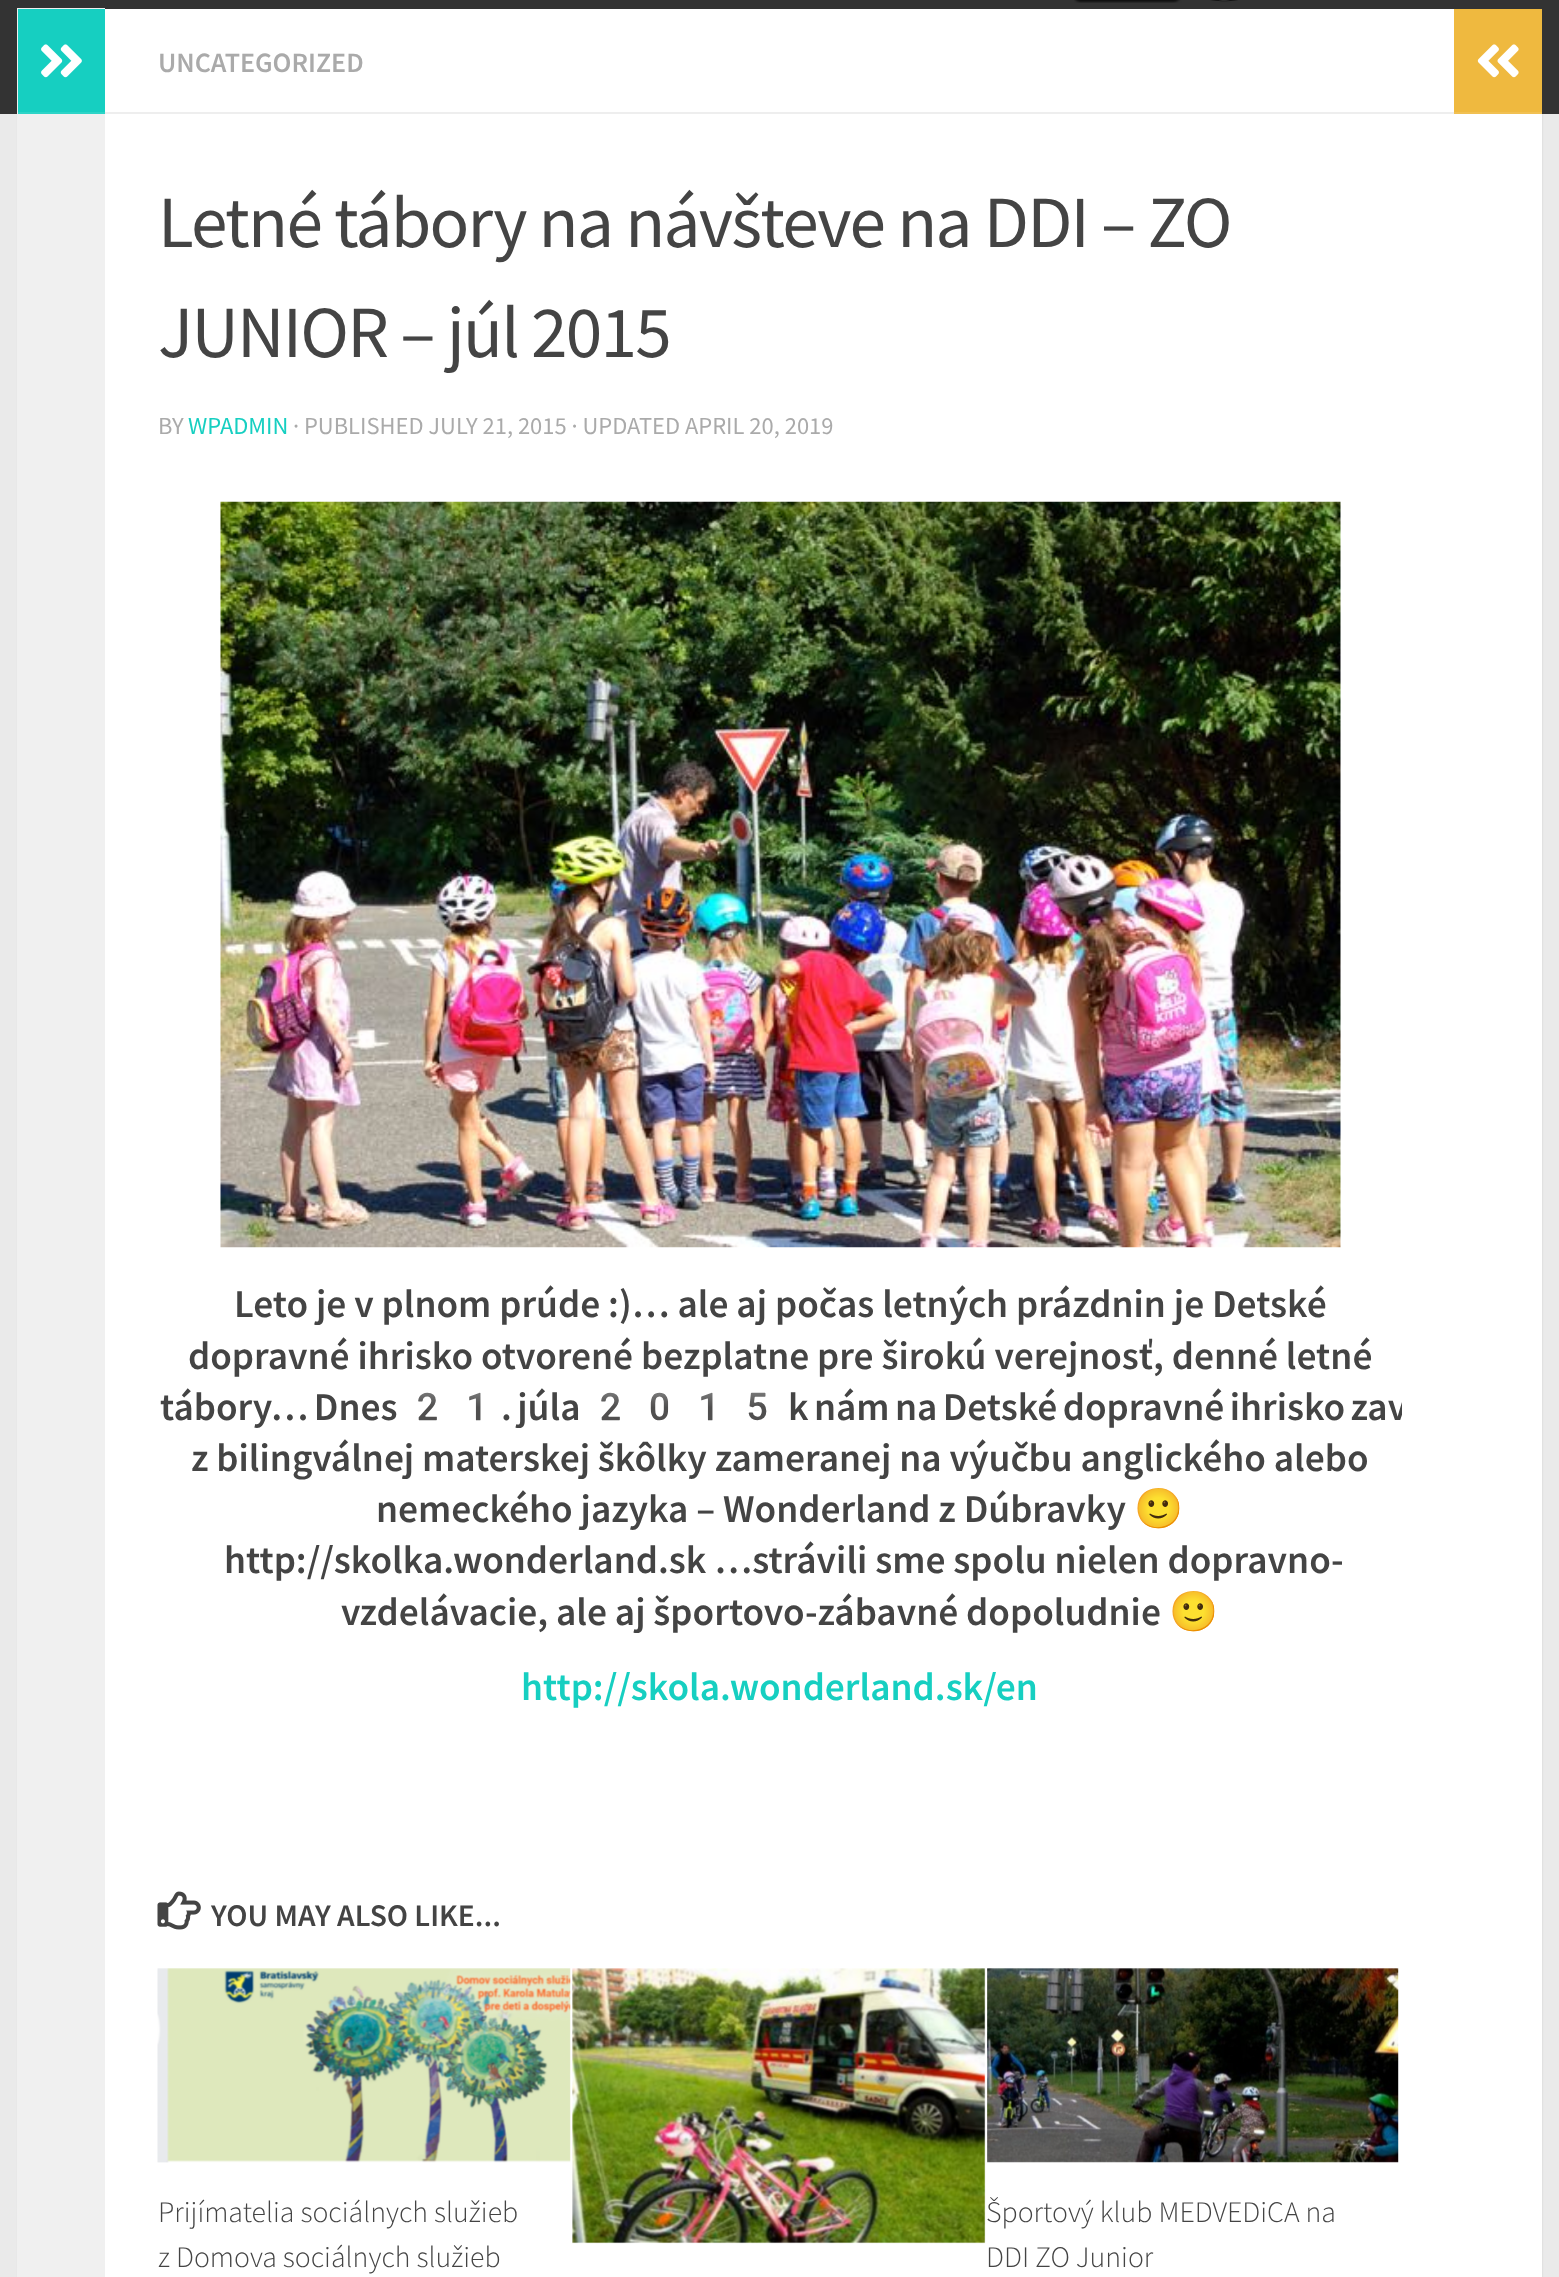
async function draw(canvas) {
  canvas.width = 1559
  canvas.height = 2277
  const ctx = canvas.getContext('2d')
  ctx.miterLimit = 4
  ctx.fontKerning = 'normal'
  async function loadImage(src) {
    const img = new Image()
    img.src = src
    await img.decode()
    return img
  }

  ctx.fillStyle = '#eaeaea'
  ctx.fillRect(0, 0, 1559, 2277)
  ctx.fillStyle = '#0000001a'
  ctx.filter = 'blur(1px)'
  ctx.beginPath()
  ctx.rect(18, 11, 1524, 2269)
  ctx.fill()
  ctx.filter = 'none'
  ctx.fillStyle = '#333'
  ctx.fillRect(0, 0, 1559, 114)
  ctx.drawImage(await loadImage('image0.png'), 1074, 0, 164, 3)
  ctx.fillStyle = '#fff'
  ctx.fillRect(105, 9, 1437, 2268)
  ctx.fillStyle = '#f0f0f0'
  ctx.fillRect(17, 8, 88, 2269)
  ctx.fillStyle = '#16cfc1'
  ctx.fillRect(18, 9, 87, 103)
  ctx.fillStyle = '#2dd4c7'
  ctx.fillRect(18, 112, 87, 2)
  ctx.drawImage(await loadImage('image1.png'), 41, 44, 41, 34)
  ctx.fillStyle = '#eee'
  ctx.fillRect(105, 112, 1349, 2)
  ctx.font = '600 28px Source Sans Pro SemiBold'
  ctx.fillStyle = '#aaa'
  ctx.fillText('UNCATEGORIZED', 158, 72)
  ctx.letterSpacing = '-1.75px'
  ctx.font = '73.4px Source Sans Pro'
  ctx.fillStyle = '#444'
  ctx.fillText('Letné tábory na návšteve na DDI – ZO', 158, 247)
  ctx.fillText('JUNIOR – júl 2015', 158, 357)
  ctx.letterSpacing = '0px'
  ctx.font = '24.5px Source Sans Pro'
  ctx.fillStyle = '#aaa'
  ctx.fillText('BY', 158, 434)
  ctx.fillStyle = '#16cfc1'
  ctx.fillText('WPADMIN', 188, 434)
  ctx.fillStyle = '#aaa'
  ctx.fillText('· PUBLISHED JULY 21, 2015 · UPDATED APRIL 20, 2019', 293, 434)
  ctx.drawImage(await loadImage('image2.png'), 220, 501, 1121, 747)
  ctx.font = '600 39.4px Source Sans Pro SemiBold'
  ctx.fillStyle = '#444'
  ctx.fillText('Leto je v plnom prúde :)… ale aj počas letných prázdnin je Detské', 234, 1317)
  ctx.fillText('dopravné ihrisko otvorené bezplatne pre širokú verejnosť, denné letné', 188, 1369)
  ctx.wordSpacing = '-2.5px'
  ctx.fillText('tábory… Dnes', 160, 1420)
  ctx.wordSpacing = '0px'
  ctx.font = 'bold 39.4px Noto Color Emoji'
  ctx.fillText('21', 403, 1420)
  ctx.wordSpacing = '-2.5px'
  ctx.font = '600 39.4px Source Sans Pro SemiBold'
  ctx.fillText('. júla', 501, 1420)
  ctx.wordSpacing = '0px'
  ctx.font = 'bold 39.4px Noto Color Emoji'
  ctx.fillText('2015', 586, 1420)
  ctx.save()
  ctx.beginPath()
  ctx.rect(158, 166, 1244, 1654)
  ctx.clip()
  ctx.wordSpacing = '-2.5px'
  ctx.font = '600 39.4px Source Sans Pro SemiBold'
  ctx.fillText('k nám na Detské dopravné ihrisko zav', 788, 1420)
  ctx.restore()
  ctx.font = '600 39.4px Source Sans Pro SemiBold'
  ctx.fillText('z bilingválnej materskej škôlky zameranej na výučbu anglického alebo', 191, 1471)
  ctx.fillText('nemeckého jazyka – Wonderland z Dúbravky', 376, 1522)
  ctx.font = 'bold 39.4px Noto Color Emoji'
  ctx.fillText('🙂', 1134, 1522)
  ctx.font = '600 39.4px Source Sans Pro SemiBold'
  ctx.fillText('http://skolka.wonderland.sk …strávili sme spolu nielen dopravno-', 224, 1573)
  ctx.fillText('vzdelávacie, ale aj športovo-zábavné dopoludnie', 341, 1625)
  ctx.font = 'bold 39.4px Noto Color Emoji'
  ctx.fillText('🙂', 1169, 1625)
  ctx.font = '600 39.4px Source Sans Pro SemiBold'
  ctx.fillStyle = '#16cfc1'
  ctx.fillText('http://skola.wonderland.sk/en', 521, 1700)
  ctx.drawImage(await loadImage('image3.png'), 157, 1891, 44, 39)
  ctx.font = '600 31.5px Source Sans Pro SemiBold'
  ctx.fillStyle = '#444'
  ctx.fillText('YOU MAY ALSO LIKE...', 211, 1926)
  ctx.drawImage(await loadImage('image4.png'), 157, 1968, 414, 195)
  ctx.font = '300 29.75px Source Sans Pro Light'
  ctx.fillText('Prijímatelia sociálnych služieb', 158, 2222)
  ctx.fillText('z Domova sociálnych služieb', 158, 2267)
  ctx.drawImage(await loadImage('image5.png'), 572, 1968, 414, 276)
  ctx.drawImage(await loadImage('image6.png'), 987, 1968, 412, 195)
  ctx.fillText('Športový klub MEDVEDiCA na', 986, 2222)
  ctx.fillText('DDI ZO Junior', 986, 2267)
  ctx.fillStyle = '#efb93f'
  ctx.fillRect(1454, 9, 88, 103)
  ctx.fillStyle = '#f1c052'
  ctx.fillRect(1454, 112, 88, 2)
  ctx.drawImage(await loadImage('image7.png'), 1477, 44, 42, 34)
}

draw(document.querySelector('canvas'))
